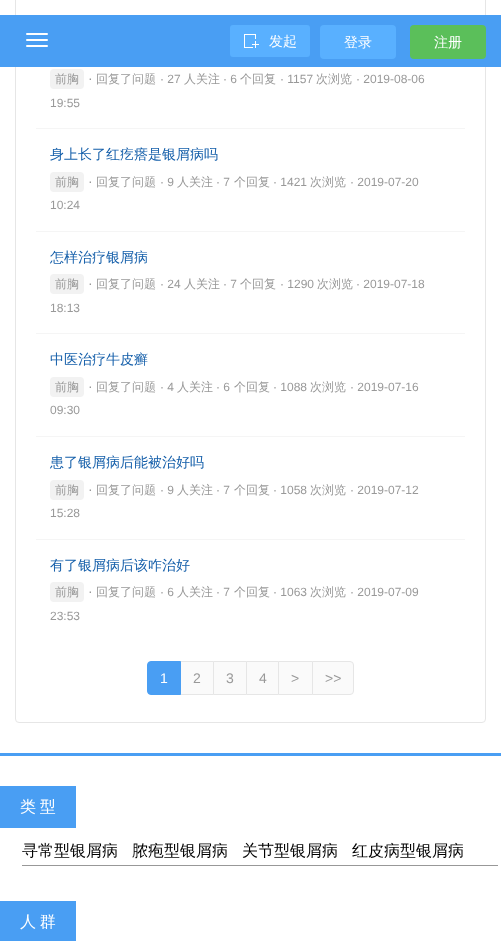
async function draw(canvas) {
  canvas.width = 501
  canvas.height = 941
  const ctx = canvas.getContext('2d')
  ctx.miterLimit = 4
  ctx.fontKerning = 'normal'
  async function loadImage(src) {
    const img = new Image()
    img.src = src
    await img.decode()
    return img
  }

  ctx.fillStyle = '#fff'
  ctx.fillRect(0, 0, 501, 941)
  ctx.beginPath()
  ctx.roundRect(15.5, -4.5, 470, 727, 3.5)
  ctx.strokeStyle = '#e6e6e6'
  ctx.stroke()
  ctx.fillStyle = '#499ef3'
  ctx.fillRect(0, 15, 501, 52)
  ctx.fillStyle = '#fff'
  ctx.beginPath()
  ctx.roundRect(26, 33, 22, 2, 1)
  ctx.fill()
  ctx.beginPath()
  ctx.roundRect(26, 39, 22, 2, 1)
  ctx.fill()
  ctx.beginPath()
  ctx.roundRect(26, 45, 22, 2, 1)
  ctx.fill()
  ctx.fillStyle = '#59b0ff'
  ctx.beginPath()
  ctx.roundRect(230, 25, 80, 32, 3)
  ctx.fill()
  ctx.drawImage(await loadImage('image0.png'), 244, 34, 15, 14)
  ctx.font = '500 14px WenQuanYi Zen Hei'
  ctx.fillStyle = '#fff'
  ctx.fillText('发起', 269, 46)
  ctx.fillStyle = '#59b0ff'
  ctx.beginPath()
  ctx.roundRect(320, 25, 76, 34, 4)
  ctx.fill()
  ctx.fillStyle = '#fff'
  ctx.fillText('登录', 344, 47)
  ctx.fillStyle = '#5bbf5a'
  ctx.beginPath()
  ctx.roundRect(410, 25, 76, 34, 4)
  ctx.fill()
  ctx.fillStyle = '#fff'
  ctx.fillText('注册', 434, 47)
  ctx.fillStyle = '#f2f2f2'
  ctx.beginPath()
  ctx.roundRect(50, 69, 34, 20, 4)
  ctx.fill()
  ctx.font = '500 12px WenQuanYi Zen Hei'
  ctx.fillStyle = '#999'
  ctx.fillText('前胸', 55, 83)
  ctx.font = '14px Liberation Sans'
  ctx.fillText('·', 88, 83)
  ctx.font = '500 12px WenQuanYi Zen Hei'
  ctx.fillText('回复了问题', 96, 83)
  ctx.font = '12px Liberation Sans'
  ctx.fillText('· 27', 160, 83)
  ctx.font = '500 12px WenQuanYi Zen Hei'
  ctx.fillText('人关注', 184, 83)
  ctx.font = '12px Liberation Sans'
  ctx.fillText('· 6', 223, 83)
  ctx.font = '500 12px WenQuanYi Zen Hei'
  ctx.fillText('个回复', 240, 83)
  ctx.font = '12px Liberation Sans'
  ctx.fillText('· 1157', 280, 83)
  ctx.font = '500 12px WenQuanYi Zen Hei'
  ctx.fillText('次浏览', 316, 83)
  ctx.font = '12px Liberation Sans'
  ctx.fillText('· 2019-08-06', 356, 83)
  ctx.fillText('19:55', 50, 107)
  ctx.fillStyle = '#f5f5f5'
  ctx.fillRect(36, 128, 429, 1)
  ctx.font = '500 14px WenQuanYi Zen Hei'
  ctx.fillStyle = '#155faa'
  ctx.fillText('身上长了红疙瘩是银屑病吗', 50, 159)
  ctx.fillStyle = '#f2f2f2'
  ctx.beginPath()
  ctx.roundRect(50, 172, 34, 20, 4)
  ctx.fill()
  ctx.font = '500 12px WenQuanYi Zen Hei'
  ctx.fillStyle = '#999'
  ctx.fillText('前胸', 55, 186)
  ctx.font = '14px Liberation Sans'
  ctx.fillText('·', 88, 186)
  ctx.font = '500 12px WenQuanYi Zen Hei'
  ctx.fillText('回复了问题', 96, 186)
  ctx.font = '12px Liberation Sans'
  ctx.fillText('· 9', 160, 186)
  ctx.font = '500 12px WenQuanYi Zen Hei'
  ctx.fillText('人关注', 177, 186)
  ctx.font = '12px Liberation Sans'
  ctx.fillText('· 7', 216, 186)
  ctx.font = '500 12px WenQuanYi Zen Hei'
  ctx.fillText('个回复', 234, 186)
  ctx.font = '12px Liberation Sans'
  ctx.fillText('· 1421', 273, 186)
  ctx.font = '500 12px WenQuanYi Zen Hei'
  ctx.fillText('次浏览', 310, 186)
  ctx.font = '12px Liberation Sans'
  ctx.fillText('· 2019-07-20', 350, 186)
  ctx.fillText('10:24', 50, 209)
  ctx.fillStyle = '#f5f5f5'
  ctx.fillRect(36, 231, 429, 1)
  ctx.font = '500 14px WenQuanYi Zen Hei'
  ctx.fillStyle = '#155faa'
  ctx.fillText('怎样治疗银屑病', 50, 262)
  ctx.fillStyle = '#f2f2f2'
  ctx.beginPath()
  ctx.roundRect(50, 274, 34, 20, 4)
  ctx.fill()
  ctx.font = '500 12px WenQuanYi Zen Hei'
  ctx.fillStyle = '#999'
  ctx.fillText('前胸', 55, 288)
  ctx.font = '14px Liberation Sans'
  ctx.fillText('·', 88, 288)
  ctx.font = '500 12px WenQuanYi Zen Hei'
  ctx.fillText('回复了问题', 96, 288)
  ctx.font = '12px Liberation Sans'
  ctx.fillText('· 24', 160, 288)
  ctx.font = '500 12px WenQuanYi Zen Hei'
  ctx.fillText('人关注', 184, 288)
  ctx.font = '12px Liberation Sans'
  ctx.fillText('· 7', 223, 288)
  ctx.font = '500 12px WenQuanYi Zen Hei'
  ctx.fillText('个回复', 240, 288)
  ctx.font = '12px Liberation Sans'
  ctx.fillText('· 1290', 280, 288)
  ctx.font = '500 12px WenQuanYi Zen Hei'
  ctx.fillText('次浏览', 317, 288)
  ctx.font = '12px Liberation Sans'
  ctx.fillText('· 2019-07-18', 356, 288)
  ctx.fillText('18:13', 50, 312)
  ctx.fillStyle = '#f5f5f5'
  ctx.fillRect(36, 333, 429, 1)
  ctx.font = '500 14px WenQuanYi Zen Hei'
  ctx.fillStyle = '#155faa'
  ctx.fillText('中医治疗牛皮癣', 50, 364)
  ctx.fillStyle = '#f2f2f2'
  ctx.beginPath()
  ctx.roundRect(50, 377, 34, 20, 4)
  ctx.fill()
  ctx.font = '500 12px WenQuanYi Zen Hei'
  ctx.fillStyle = '#999'
  ctx.fillText('前胸', 55, 391)
  ctx.font = '14px Liberation Sans'
  ctx.fillText('·', 88, 391)
  ctx.font = '500 12px WenQuanYi Zen Hei'
  ctx.fillText('回复了问题', 96, 391)
  ctx.font = '12px Liberation Sans'
  ctx.fillText('· 4', 160, 391)
  ctx.font = '500 12px WenQuanYi Zen Hei'
  ctx.fillText('人关注', 177, 391)
  ctx.font = '12px Liberation Sans'
  ctx.fillText('· 6', 216, 391)
  ctx.font = '500 12px WenQuanYi Zen Hei'
  ctx.fillText('个回复', 234, 391)
  ctx.font = '12px Liberation Sans'
  ctx.fillText('· 1088', 273, 391)
  ctx.font = '500 12px WenQuanYi Zen Hei'
  ctx.fillText('次浏览', 310, 391)
  ctx.font = '12px Liberation Sans'
  ctx.fillText('· 2019-07-16', 350, 391)
  ctx.fillText('09:30', 50, 414)
  ctx.fillStyle = '#f5f5f5'
  ctx.fillRect(36, 436, 429, 1)
  ctx.font = '500 14px WenQuanYi Zen Hei'
  ctx.fillStyle = '#155faa'
  ctx.fillText('患了银屑病后能被治好吗', 50, 467)
  ctx.fillStyle = '#f2f2f2'
  ctx.beginPath()
  ctx.roundRect(50, 480, 34, 20, 4)
  ctx.fill()
  ctx.font = '500 12px WenQuanYi Zen Hei'
  ctx.fillStyle = '#999'
  ctx.fillText('前胸', 55, 494)
  ctx.font = '14px Liberation Sans'
  ctx.fillText('·', 88, 494)
  ctx.font = '500 12px WenQuanYi Zen Hei'
  ctx.fillText('回复了问题', 96, 494)
  ctx.font = '12px Liberation Sans'
  ctx.fillText('· 9', 160, 494)
  ctx.font = '500 12px WenQuanYi Zen Hei'
  ctx.fillText('人关注', 177, 494)
  ctx.font = '12px Liberation Sans'
  ctx.fillText('· 7', 216, 494)
  ctx.font = '500 12px WenQuanYi Zen Hei'
  ctx.fillText('个回复', 234, 494)
  ctx.font = '12px Liberation Sans'
  ctx.fillText('· 1058', 273, 494)
  ctx.font = '500 12px WenQuanYi Zen Hei'
  ctx.fillText('次浏览', 310, 494)
  ctx.font = '12px Liberation Sans'
  ctx.fillText('· 2019-07-12', 350, 494)
  ctx.fillText('15:28', 50, 517)
  ctx.fillStyle = '#f5f5f5'
  ctx.fillRect(36, 539, 429, 1)
  ctx.font = '500 14px WenQuanYi Zen Hei'
  ctx.fillStyle = '#155faa'
  ctx.fillText('有了银屑病后该咋治好', 50, 570)
  ctx.fillStyle = '#f2f2f2'
  ctx.beginPath()
  ctx.roundRect(50, 582, 34, 20, 4)
  ctx.fill()
  ctx.font = '500 12px WenQuanYi Zen Hei'
  ctx.fillStyle = '#999'
  ctx.fillText('前胸', 55, 596)
  ctx.font = '14px Liberation Sans'
  ctx.fillText('·', 88, 596)
  ctx.font = '500 12px WenQuanYi Zen Hei'
  ctx.fillText('回复了问题', 96, 596)
  ctx.font = '12px Liberation Sans'
  ctx.fillText('· 6', 160, 596)
  ctx.font = '500 12px WenQuanYi Zen Hei'
  ctx.fillText('人关注', 177, 596)
  ctx.font = '12px Liberation Sans'
  ctx.fillText('· 7', 216, 596)
  ctx.font = '500 12px WenQuanYi Zen Hei'
  ctx.fillText('个回复', 234, 596)
  ctx.font = '12px Liberation Sans'
  ctx.fillText('· 1063', 273, 596)
  ctx.font = '500 12px WenQuanYi Zen Hei'
  ctx.fillText('次浏览', 310, 596)
  ctx.font = '12px Liberation Sans'
  ctx.fillText('· 2019-07-09', 350, 596)
  ctx.fillText('23:53', 50, 620)
  ctx.fillStyle = '#fafafa'
  ctx.beginPath()
  ctx.rect(180.5, 661.5, 33, 33)
  ctx.fill()
  ctx.stroke()
  ctx.fillStyle = '#499ef3'
  ctx.beginPath()
  ctx.roundRect(147.5, 661.5, 33, 33, [3.5, 0, 0, 3.5])
  ctx.fill()
  ctx.strokeStyle = '#499ef3'
  ctx.stroke()
  ctx.font = '14px Liberation Sans'
  ctx.fillStyle = '#fff'
  ctx.fillText('1', 160, 683)
  ctx.fillStyle = '#999'
  ctx.fillText('2', 193, 683)
  ctx.fillStyle = '#fafafa'
  ctx.beginPath()
  ctx.rect(213.5, 661.5, 33, 33)
  ctx.fill()
  ctx.strokeStyle = '#e6e6e6'
  ctx.stroke()
  ctx.fillStyle = '#999'
  ctx.fillText('3', 226, 683)
  ctx.fillStyle = '#fafafa'
  ctx.beginPath()
  ctx.rect(246.5, 661.5, 32, 33)
  ctx.fill()
  ctx.stroke()
  ctx.fillStyle = '#999'
  ctx.fillText('4', 259, 683)
  ctx.fillStyle = '#fafafa'
  ctx.beginPath()
  ctx.rect(278.5, 661.5, 34, 33)
  ctx.fill()
  ctx.stroke()
  ctx.fillStyle = '#999'
  ctx.fillText('>', 291, 683)
  ctx.fillStyle = '#fafafa'
  ctx.beginPath()
  ctx.roundRect(312.5, 661.5, 41, 33, [0, 3.5, 3.5, 0])
  ctx.fill()
  ctx.stroke()
  ctx.fillStyle = '#999'
  ctx.fillText('>>', 325, 683)
  ctx.fillStyle = '#499ef3'
  ctx.fillRect(0, 753, 501, 3)
  ctx.fillRect(0, 786, 76, 42)
  ctx.wordSpacing = '-1px'
  ctx.font = '500 16px WenQuanYi Zen Hei'
  ctx.fillStyle = '#fff'
  ctx.fillText('类 型', 20, 812)
  ctx.fillStyle = '#989898'
  ctx.fillRect(22, 865, 476, 1)
  ctx.wordSpacing = '0px'
  ctx.fillStyle = '#000'
  ctx.fillText('寻常型银屑病', 22, 856)
  ctx.fillText('脓疱型银屑病', 132, 856)
  ctx.fillText('关节型银屑病', 242, 856)
  ctx.fillText('红皮病型银屑病', 352, 856)
  ctx.fillStyle = '#499ef3'
  ctx.fillRect(0, 901, 76, 40)
  ctx.wordSpacing = '-1px'
  ctx.fillStyle = '#fff'
  ctx.fillText('人 群', 20, 927)
}

draw(document.querySelector('canvas'))
